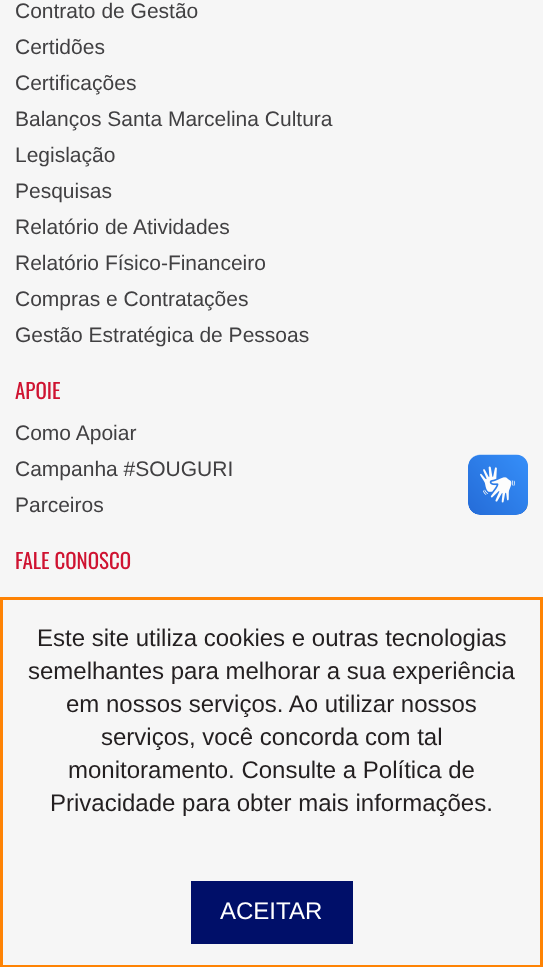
async function draw(canvas) {
  canvas.width = 543
  canvas.height = 967
  const ctx = canvas.getContext('2d')
  ctx.miterLimit = 4
  ctx.fontKerning = 'normal'
  async function loadImage(src) {
    const img = new Image()
    img.src = src
    await img.decode()
    return img
  }

  ctx.fillStyle = '#f6f6f6'
  ctx.fillRect(0, 0, 543, 967)
  ctx.font = '21px Liberation Sans'
  ctx.fillStyle = '#414042'
  ctx.fillText('Contrato de Gestão', 15, 18)
  ctx.fillText('Certidões', 15, 54)
  ctx.fillText('Certificações', 15, 90)
  ctx.fillText('Balanços Santa Marcelina Cultura', 15, 126)
  ctx.fillText('Legislação', 15, 162)
  ctx.fillText('Pesquisas', 15, 198)
  ctx.fillText('Relatório de Atividades', 15, 234)
  ctx.fillText('Relatório Físico-Financeiro', 15, 270)
  ctx.fillText('Compras e Contratações', 15, 306)
  ctx.fillText('Gestão Estratégica de Pessoas', 15, 342)
  ctx.font = '21px Oswald'
  ctx.fillStyle = '#cf1331'
  ctx.fillText('APOIE', 15, 399)
  ctx.font = '21px Liberation Sans'
  ctx.fillStyle = '#414042'
  ctx.fillText('Como Apoiar', 15, 440)
  ctx.fillText('Campanha #SOUGURI', 15, 476)
  ctx.fillText('Parceiros', 15, 512)
  ctx.font = '21px Oswald'
  ctx.fillStyle = '#cf1331'
  ctx.fillText('FALE CONOSCO', 15, 569)
  ctx.drawImage(await loadImage('image0.png'), 468, 454, 60, 61)
  ctx.drawImage(await loadImage('image1.png'), 468, 455, 60, 60)
  ctx.strokeStyle = '#fe8304'
  ctx.lineWidth = 3
  ctx.strokeRect(1.5, 598.5, 540, 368)
  ctx.font = '24px Liberation Sans'
  ctx.fillStyle = '#231f20'
  ctx.fillText('Este site utiliza cookies e outras tecnologias', 37, 646)
  ctx.fillText('semelhantes para melhorar a sua experiência', 28, 679)
  ctx.fillText('em nossos serviços. Ao utilizar nossos', 66, 712)
  ctx.fillText('serviços, você concorda com tal', 101, 745)
  ctx.fillText('monitoramento. Consulte a Política de', 68, 778)
  ctx.fillText('Privacidade para obter mais informações.', 50, 811)
  ctx.fillStyle = '#000f69'
  ctx.fillRect(191, 881, 162, 63)
  ctx.fillStyle = '#fff'
  ctx.fillText('ACEITAR', 220, 919)
}

draw(document.querySelector('canvas'))
